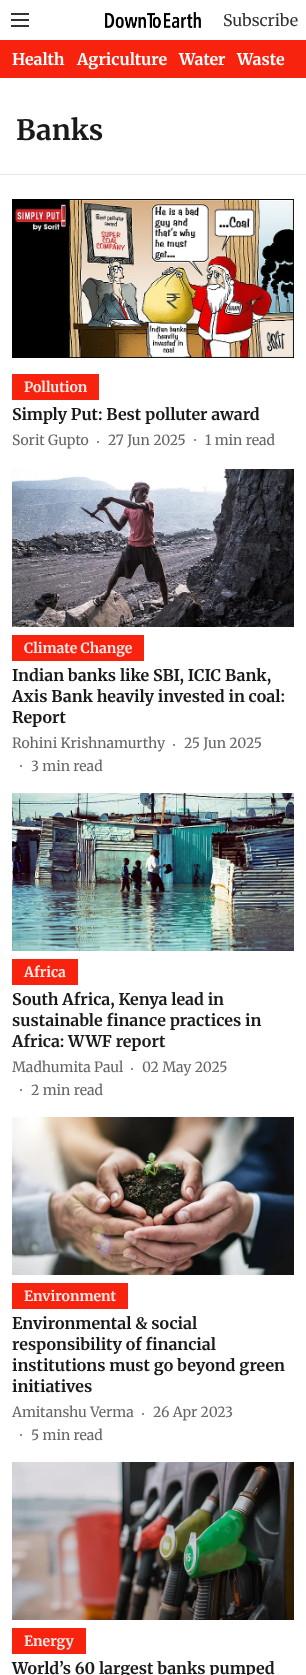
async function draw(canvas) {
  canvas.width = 306
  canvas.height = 1675
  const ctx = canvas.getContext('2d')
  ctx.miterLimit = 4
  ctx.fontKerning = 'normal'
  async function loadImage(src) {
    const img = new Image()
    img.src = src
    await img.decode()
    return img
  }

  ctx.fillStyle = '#fff'
  ctx.fillRect(0, 0, 306, 1675)
  ctx.drawImage(await loadImage('image0.png'), 11, 13, 18, 14)
  ctx.drawImage(await loadImage('image1.png'), 105, 12, 96, 16)
  ctx.font = '300 16px "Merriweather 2"'
  ctx.fillStyle = '#333'
  ctx.fillText('Subscribe', 223, 26)
  ctx.fillStyle = '#f7230f'
  ctx.fillRect(0, 40, 306, 38)
  ctx.font = '300 16px Merriweather'
  ctx.fillStyle = '#fff'
  ctx.fillText('Health', 12, 65)
  ctx.fillText('Agriculture', 77, 65)
  ctx.fillText('Water', 179, 65)
  ctx.fillText('Waste', 237, 65)
  ctx.fillStyle = '#e6e6e6'
  ctx.fillRect(0, 174, 306, 1)
  ctx.font = '300 28px Merriweather'
  ctx.fillStyle = '#1a1a1a'
  ctx.fillText('Banks', 16, 140)
  ctx.drawImage(await loadImage('image2.png'), 12, 199, 282, 159)
  ctx.fillStyle = '#f7230f'
  ctx.fillRect(12, 374, 87, 26)
  ctx.font = '300 14px Merriweather'
  ctx.fillStyle = '#fee9e7'
  ctx.fillText('Pollution', 24, 392)
  ctx.font = '300 16px Merriweather'
  ctx.fillStyle = '#1a1a1a'
  ctx.fillText('Simply Put: Best polluter award', 12, 420)
  ctx.font = '300 14px "Merriweather 2"'
  ctx.fillStyle = '#666'
  ctx.fillText('Sorit Gupto', 12, 445)
  ctx.beginPath()
  ctx.arc(98, 442, 1, 0, 2 * Math.PI)
  ctx.fill()
  ctx.fillText('27 Jun 2025', 108, 445)
  ctx.beginPath()
  ctx.arc(195, 440, 1, 0, 2 * Math.PI)
  ctx.fill()
  ctx.fillText('1 min read', 205, 445)
  ctx.drawImage(await loadImage('image3.png'), 12, 469, 282, 158)
  ctx.fillStyle = '#f7230f'
  ctx.fillRect(12, 635, 132, 26)
  ctx.font = '300 14px Merriweather'
  ctx.fillStyle = '#fee9e7'
  ctx.fillText('Climate Change', 24, 653)
  ctx.font = '300 16px Merriweather'
  ctx.fillStyle = '#1a1a1a'
  ctx.fillText('Indian banks like SBI, ICIC Bank,', 12, 681)
  ctx.fillText('Axis Bank heavily invested in coal:', 12, 702)
  ctx.fillText('Report', 12, 723)
  ctx.font = '300 14px "Merriweather 2"'
  ctx.fillStyle = '#666'
  ctx.fillText('Rohini Krishnamurthy', 12, 748)
  ctx.beginPath()
  ctx.arc(174, 745, 1, 0, 2 * Math.PI)
  ctx.fill()
  ctx.fillText('25 Jun 2025', 184, 748)
  ctx.beginPath()
  ctx.arc(21, 766, 1, 0, 2 * Math.PI)
  ctx.fill()
  ctx.fillText('3 min read', 31, 771)
  ctx.drawImage(await loadImage('image4.png'), 12, 793, 282, 158)
  ctx.fillStyle = '#f7230f'
  ctx.fillRect(12, 959, 66, 26)
  ctx.font = '300 14px Merriweather'
  ctx.fillStyle = '#fee9e7'
  ctx.fillText('Africa', 24, 977)
  ctx.font = '300 16px Merriweather'
  ctx.fillStyle = '#1a1a1a'
  ctx.fillText('South Africa, Kenya lead in', 12, 1005)
  ctx.fillText('sustainable finance practices in', 12, 1026)
  ctx.fillText('Africa: WWF report', 12, 1047)
  ctx.font = '300 14px "Merriweather 2"'
  ctx.fillStyle = '#666'
  ctx.fillText('Madhumita Paul', 12, 1072)
  ctx.beginPath()
  ctx.arc(132, 1069, 1, 0, 2 * Math.PI)
  ctx.fill()
  ctx.fillText('02 May 2025', 142, 1072)
  ctx.beginPath()
  ctx.arc(21, 1090, 1, 0, 2 * Math.PI)
  ctx.fill()
  ctx.fillText('2 min read', 31, 1095)
  ctx.drawImage(await loadImage('image5.png'), 12, 1117, 282, 158)
  ctx.fillStyle = '#f7230f'
  ctx.fillRect(12, 1283, 116, 26)
  ctx.font = '300 14px Merriweather'
  ctx.fillStyle = '#fee9e7'
  ctx.fillText('Environment', 24, 1301)
  ctx.font = '300 16px Merriweather'
  ctx.fillStyle = '#1a1a1a'
  ctx.fillText('Environmental & social', 12, 1329)
  ctx.fillText('responsibility of financial', 12, 1350)
  ctx.fillText('institutions must go beyond green', 12, 1371)
  ctx.fillText('initiatives', 12, 1392)
  ctx.font = '300 14px "Merriweather 2"'
  ctx.fillStyle = '#666'
  ctx.fillText('Amitanshu Verma', 12, 1417)
  ctx.beginPath()
  ctx.arc(143, 1414, 1, 0, 2 * Math.PI)
  ctx.fill()
  ctx.fillText('26 Apr 2023', 153, 1417)
  ctx.beginPath()
  ctx.arc(21, 1435, 1, 0, 2 * Math.PI)
  ctx.fill()
  ctx.fillText('5 min read', 31, 1440)
  ctx.drawImage(await loadImage('image6.png'), 12, 1462, 282, 158)
  ctx.fillStyle = '#f7230f'
  ctx.fillRect(12, 1628, 74, 26)
  ctx.font = '300 14px Merriweather'
  ctx.fillStyle = '#fee9e7'
  ctx.fillText('Energy', 24, 1646)
  ctx.font = '300 16px Merriweather'
  ctx.fillStyle = '#1a1a1a'
  ctx.fillText('World’s 60 largest banks pumped', 12, 1674)
}

draw(document.querySelector('canvas'))
